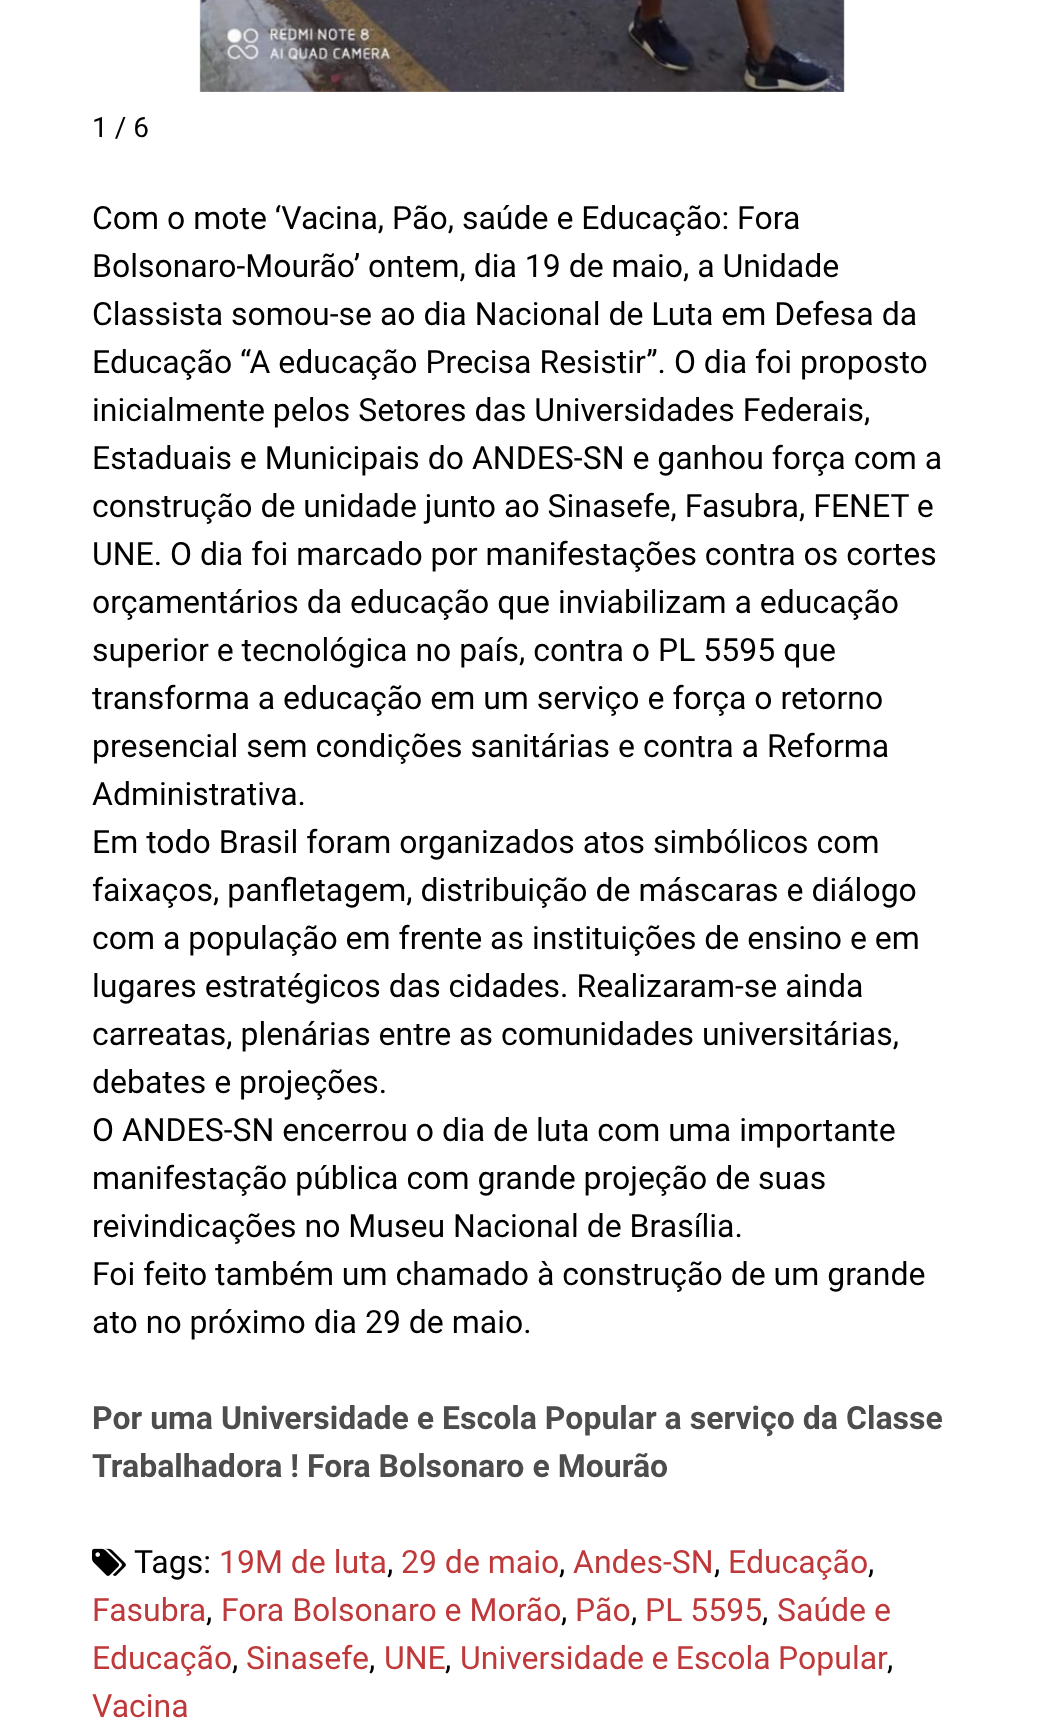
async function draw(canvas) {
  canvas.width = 1044
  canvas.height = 1726
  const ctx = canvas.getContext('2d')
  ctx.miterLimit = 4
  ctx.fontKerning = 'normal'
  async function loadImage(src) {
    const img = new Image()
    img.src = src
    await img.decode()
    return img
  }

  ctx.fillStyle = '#fff'
  ctx.fillRect(0, 0, 1044, 1726)
  ctx.drawImage(await loadImage('image0.png'), 199, 0, 646, 92)
  ctx.font = '28px Roboto'
  ctx.fillStyle = '#000'
  ctx.fillText('1 / 6', 92, 137)
  ctx.font = '32px Roboto'
  ctx.fillText('Com o mote ‘Vacina, Pão, saúde e Educação: Fora', 92, 229)
  ctx.fillText('Bolsonaro-Mourão’ ontem, dia 19 de maio, a Unidade', 92, 277)
  ctx.fillText('Classista somou-se ao dia Nacional de Luta em Defesa da', 92, 325)
  ctx.fillText('Educação “A educação Precisa Resistir”. O dia foi proposto', 92, 373)
  ctx.fillText('inicialmente pelos Setores das Universidades Federais,', 92, 421)
  ctx.fillText('Estaduais e Municipais do ANDES-SN e ganhou força com a', 92, 469)
  ctx.fillText('construção de unidade junto ao Sinasefe, Fasubra, FENET e', 92, 517)
  ctx.fillText('UNE. O dia foi marcado por manifestações contra os cortes', 92, 565)
  ctx.fillText('orçamentários da educação que inviabilizam a educação', 92, 613)
  ctx.fillText('superior e tecnológica no país, contra o PL 5595 que', 92, 661)
  ctx.fillText('transforma a educação em um serviço e força o retorno', 92, 709)
  ctx.fillText('presencial sem condições sanitárias e contra a Reforma', 92, 757)
  ctx.fillText('Administrativa.', 92, 805)
  ctx.fillText('Em todo Brasil foram organizados atos simbólicos com', 92, 853)
  ctx.fillText('faixaços, panfletagem, distribuição de máscaras e diálogo', 92, 901)
  ctx.fillText('com a população em frente as instituições de ensino e em', 92, 949)
  ctx.fillText('lugares estratégicos das cidades. Realizaram-se ainda', 92, 997)
  ctx.fillText('carreatas, plenárias entre as comunidades universitárias,', 92, 1045)
  ctx.fillText('debates e projeções.', 92, 1093)
  ctx.fillText('O ANDES-SN encerrou o dia de luta com uma importante', 92, 1141)
  ctx.fillText('manifestação pública com grande projeção de suas', 92, 1189)
  ctx.fillText('reivindicações no Museu Nacional de Brasília.', 92, 1237)
  ctx.fillText('Foi feito também um chamado à construção de um grande', 92, 1285)
  ctx.fillText('ato no próximo dia 29 de maio.', 92, 1333)
  ctx.font = 'bold 32px Roboto'
  ctx.fillStyle = '#4d4d4d'
  ctx.fillText('Por uma Universidade e Escola Popular a serviço da Classe', 92, 1429)
  ctx.fillText('Trabalhadora ! Fora Bolsonaro e Mourão', 92, 1477)
  ctx.drawImage(await loadImage('image1.png'), 92, 1548, 34, 28)
  ctx.font = '32px Roboto'
  ctx.fillStyle = '#000'
  ctx.fillText('Tags:', 134, 1573)
  ctx.fillStyle = '#bf383a'
  ctx.fillText('19M de luta', 219, 1573)
  ctx.fillStyle = '#000'
  ctx.fillText(',', 387, 1573)
  ctx.fillStyle = '#bf383a'
  ctx.fillText('29 de maio', 401, 1573)
  ctx.fillStyle = '#000'
  ctx.fillText(',', 559, 1573)
  ctx.fillStyle = '#bf383a'
  ctx.fillText('Andes-SN', 573, 1573)
  ctx.fillStyle = '#000'
  ctx.fillText(',', 714, 1573)
  ctx.fillStyle = '#bf383a'
  ctx.fillText('Educação', 728, 1573)
  ctx.fillStyle = '#000'
  ctx.fillText(',', 868, 1573)
  ctx.fillStyle = '#bf383a'
  ctx.fillText('Fasubra', 92, 1621)
  ctx.fillStyle = '#000'
  ctx.fillText(',', 206, 1621)
  ctx.fillStyle = '#bf383a'
  ctx.fillText('Fora Bolsonaro e Morão', 221, 1621)
  ctx.fillStyle = '#000'
  ctx.fillText(',', 561, 1621)
  ctx.fillStyle = '#bf383a'
  ctx.fillText('Pão', 575, 1621)
  ctx.fillStyle = '#000'
  ctx.fillText(',', 631, 1621)
  ctx.fillStyle = '#bf383a'
  ctx.fillText('PL 5595', 645, 1621)
  ctx.fillStyle = '#000'
  ctx.fillText(',', 762, 1621)
  ctx.fillStyle = '#bf383a'
  ctx.fillText('Saúde e', 777, 1621)
  ctx.fillText('Educação', 92, 1669)
  ctx.fillStyle = '#000'
  ctx.fillText(',', 232, 1669)
  ctx.fillStyle = '#bf383a'
  ctx.fillText('Sinasefe', 246, 1669)
  ctx.fillStyle = '#000'
  ctx.fillText(',', 369, 1669)
  ctx.fillStyle = '#bf383a'
  ctx.fillText('UNE', 384, 1669)
  ctx.fillStyle = '#000'
  ctx.fillText(',', 445, 1669)
  ctx.wordSpacing = '-0.5px'
  ctx.fillStyle = '#bf383a'
  ctx.fillText('Universidade e Escola Popular', 460, 1669)
  ctx.wordSpacing = '0px'
  ctx.fillStyle = '#000'
  ctx.fillText(',', 887, 1669)
  ctx.fillStyle = '#bf383a'
  ctx.fillText('Vacina', 92, 1717)
}

draw(document.querySelector('canvas'))
